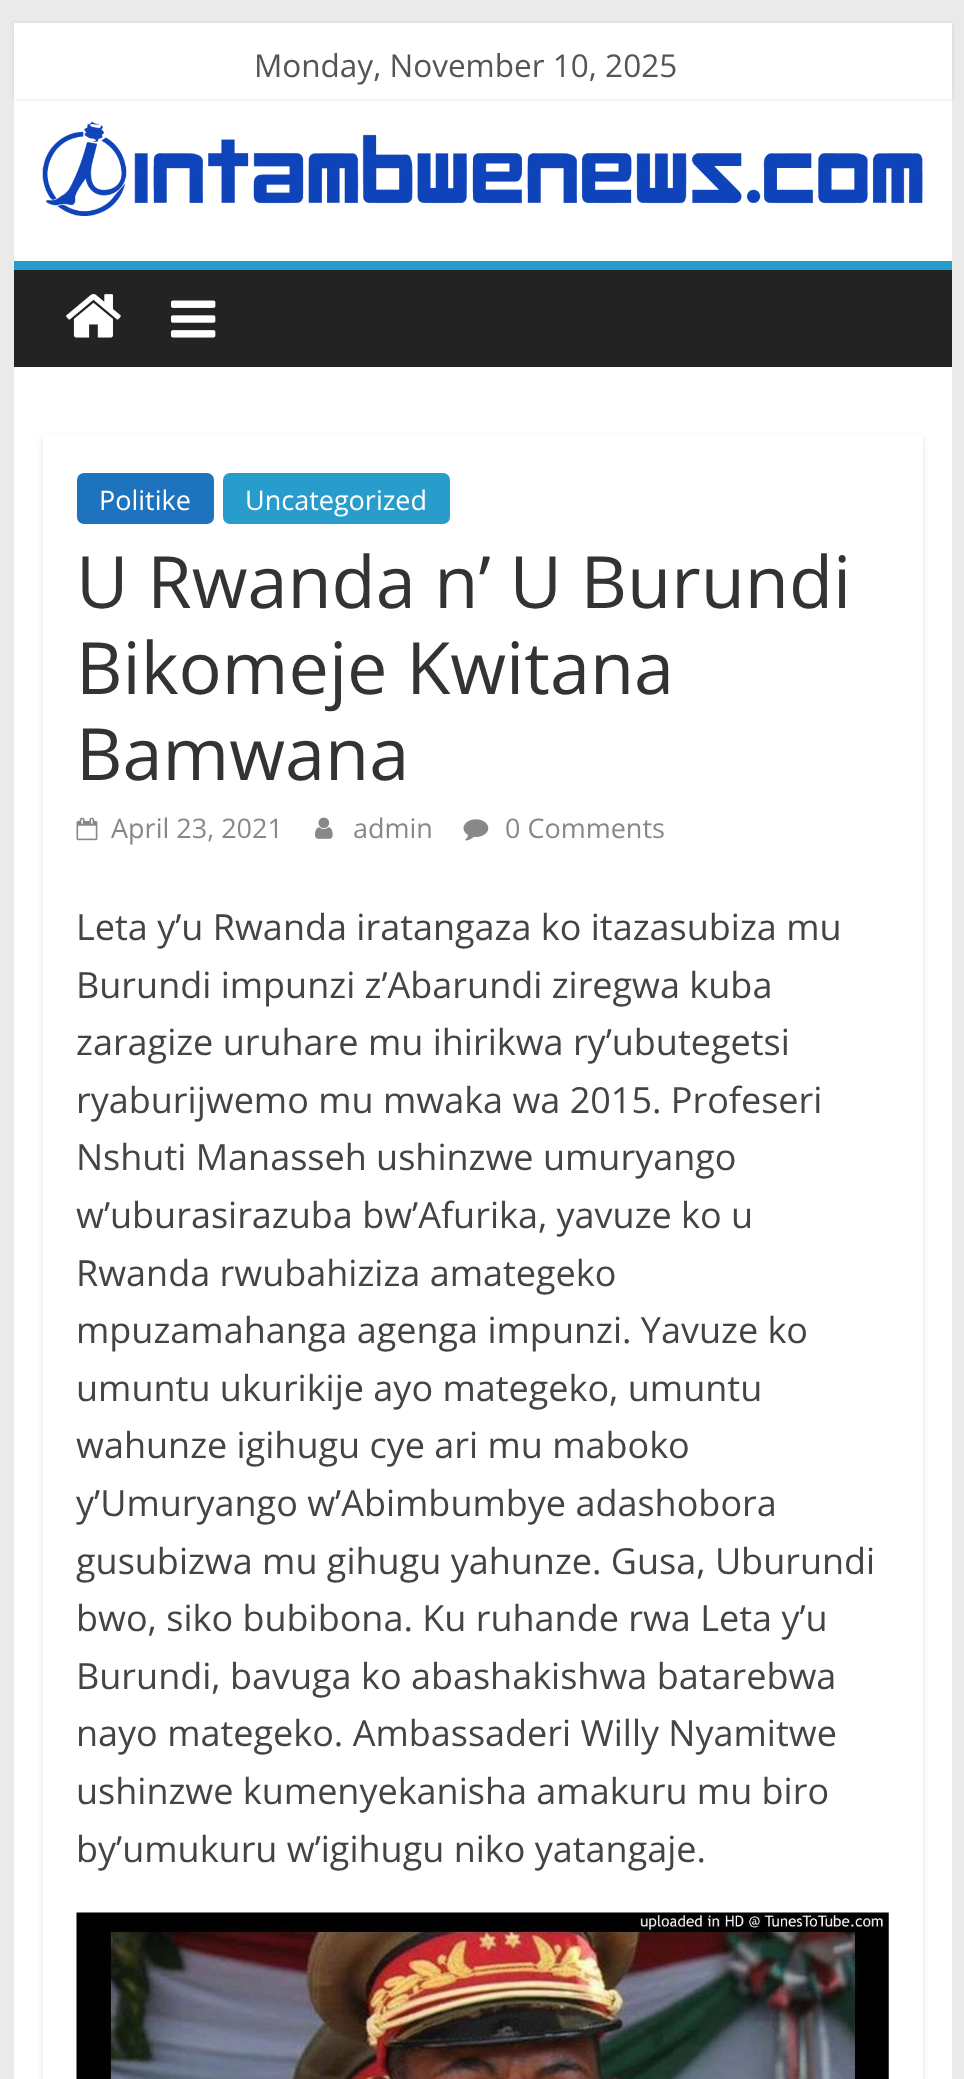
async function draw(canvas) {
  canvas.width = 964
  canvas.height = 2079
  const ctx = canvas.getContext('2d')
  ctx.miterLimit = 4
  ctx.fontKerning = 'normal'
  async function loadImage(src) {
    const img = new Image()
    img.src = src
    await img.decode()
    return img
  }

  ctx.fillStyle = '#eaeaea'
  ctx.fillRect(0, 0, 964, 2079)
  ctx.fillStyle = '#fff'
  ctx.fillRect(14, 99, 938, 162)
  ctx.fillStyle = '#0000001a'
  ctx.filter = 'blur(2px)'
  ctx.beginPath()
  ctx.rect(14, 23, 938, 76)
  ctx.fill()
  ctx.filter = 'none'
  ctx.fillStyle = '#fff'
  ctx.fillRect(14, 23, 938, 76)
  ctx.font = '31.5px Open Sans'
  ctx.fillStyle = '#555'
  ctx.fillText('Monday, November 10, 2025', 254, 77)
  ctx.drawImage(await loadImage('image0.png'), 42, 121, 881, 95)
  ctx.fillStyle = '#232323'
  ctx.fillRect(14, 270, 938, 97)
  ctx.fillStyle = '#289dcc'
  ctx.fillRect(14, 261, 938, 9)
  ctx.drawImage(await loadImage('image1.png'), 66, 294, 55, 44)
  ctx.drawImage(await loadImage('image2.png'), 171, 300, 45, 38)
  ctx.fillStyle = '#fff'
  ctx.fillRect(14, 367, 938, 1712)
  ctx.save()
  ctx.beginPath()
  ctx.moveTo(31, 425)
  ctx.lineTo(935, 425)
  ctx.lineTo(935, 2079)
  ctx.lineTo(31, 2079)
  ctx.closePath()
  ctx.moveTo(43, 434)
  ctx.lineTo(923, 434)
  ctx.lineTo(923, 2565)
  ctx.lineTo(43, 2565)
  ctx.closePath()
  ctx.clip('evenodd')
  ctx.fillStyle = '#0000001a'
  ctx.filter = 'blur(3.5px)'
  ctx.beginPath()
  ctx.rect(43, 437, 880, 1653)
  ctx.fill()
  ctx.filter = 'none'
  ctx.restore()
  ctx.fillStyle = '#1e73be'
  ctx.beginPath()
  ctx.roundRect(77, 473, 137, 51, 7)
  ctx.fill()
  ctx.font = '27px Open Sans'
  ctx.fillStyle = '#fff'
  ctx.fillText('Politike', 99, 510)
  ctx.fillStyle = '#289dcc'
  ctx.beginPath()
  ctx.roundRect(223, 473, 227, 51, 7)
  ctx.fill()
  ctx.fillStyle = '#fff'
  ctx.fillText('Uncategorized', 245, 510)
  ctx.font = '72px Open Sans'
  ctx.fillStyle = '#333'
  ctx.fillText('U Rwanda n’ U Burundi', 76, 608)
  ctx.fillText('Bikomeje Kwitana', 76, 694)
  ctx.fillText('Bamwana', 76, 780)
  ctx.drawImage(await loadImage('image3.png'), 76, 817, 22, 24)
  ctx.font = '27px Open Sans'
  ctx.fillStyle = '#888'
  ctx.fillText('April 23, 2021', 111, 838)
  ctx.drawImage(await loadImage('image4.png'), 315, 817, 18, 22)
  ctx.fillText('admin', 353, 838)
  ctx.drawImage(await loadImage('image5.png'), 463, 819, 26, 22)
  ctx.fillText('0 Comments', 505, 838)
  ctx.font = '36px Open Sans'
  ctx.fillStyle = '#444'
  ctx.fillText('Leta y’u Rwanda iratangaza ko itazasubiza mu', 76, 940)
  ctx.fillText('Burundi impunzi z’Abarundi ziregwa kuba', 76, 998)
  ctx.fillText('zaragize uruhare mu ihirikwa ry’ubutegetsi', 76, 1055)
  ctx.fillText('ryaburijwemo mu mwaka wa 2015. Profeseri', 76, 1113)
  ctx.fillText('Nshuti Manasseh ushinzwe umuryango', 76, 1170)
  ctx.fillText('w’uburasirazuba bw’Afurika, yavuze ko u', 76, 1228)
  ctx.fillText('Rwanda rwubahiziza amategeko', 76, 1286)
  ctx.fillText('mpuzamahanga agenga impunzi. Yavuze ko', 76, 1343)
  ctx.fillText('umuntu ukurikije ayo mategeko, umuntu', 76, 1401)
  ctx.fillText('wahunze igihugu cye ari mu maboko', 76, 1458)
  ctx.fillText('y’Umuryango w’Abimbumbye adashobora', 76, 1516)
  ctx.fillText('gusubizwa mu gihugu yahunze. Gusa, Uburundi', 76, 1574)
  ctx.fillText('bwo, siko bubibona. Ku ruhande rwa Leta y’u', 76, 1631)
  ctx.fillText('Burundi, bavuga ko abashakishwa batarebwa', 76, 1689)
  ctx.fillText('nayo mategeko. Ambassaderi Willy Nyamitwe', 76, 1746)
  ctx.fillText('ushinzwe kumenyekanisha amakuru mu biro', 76, 1804)
  ctx.fillText('by’umukuru w’igihugu niko yatangaje.', 76, 1862)
  ctx.drawImage(await loadImage('image6.png'), 76, 1912, 813, 167)
}

draw(document.querySelector('canvas'))
